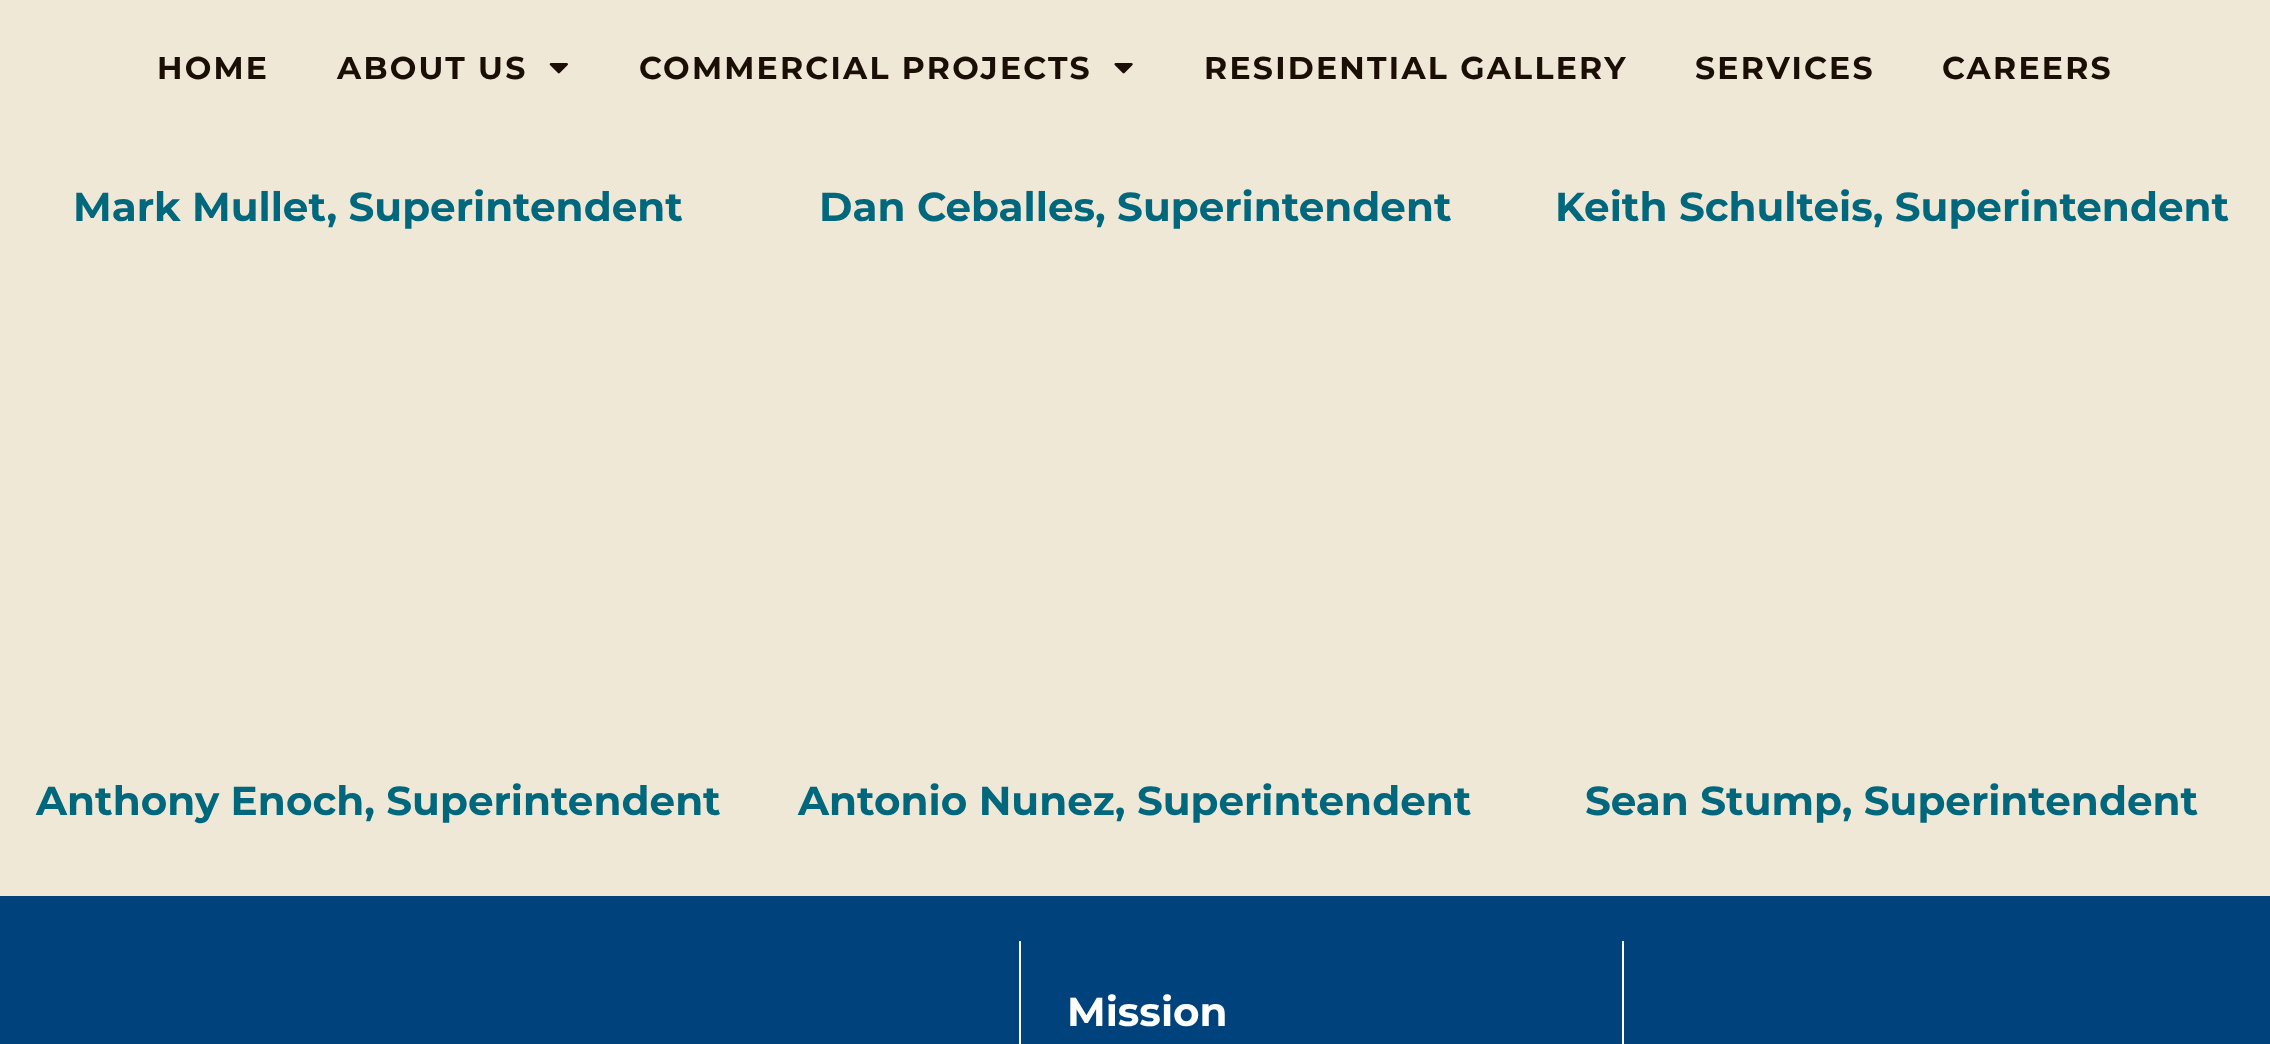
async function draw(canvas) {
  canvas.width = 2270
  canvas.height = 1044
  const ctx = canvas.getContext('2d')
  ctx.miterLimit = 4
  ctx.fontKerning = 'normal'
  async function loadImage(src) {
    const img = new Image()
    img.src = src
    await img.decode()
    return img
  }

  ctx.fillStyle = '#efe8d7'
  ctx.fillRect(0, 0, 2270, 1044)
  ctx.letterSpacing = '2.25px'
  ctx.font = 'bold 31.5px Montserrat'
  ctx.fillStyle = '#1a0e05'
  ctx.fillText('HOME', 157, 79)
  ctx.fillText('ABOUT US', 337, 79)
  ctx.drawImage(await loadImage('image0.png'), 549, 63, 19, 11)
  ctx.fillText('COMMERCIAL PROJECTS', 639, 79)
  ctx.drawImage(await loadImage('image1.png'), 1114, 63, 19, 11)
  ctx.fillText('RESIDENTIAL GALLERY', 1204, 79)
  ctx.fillText('SERVICES', 1695, 79)
  ctx.fillText('CAREERS', 1942, 79)
  ctx.letterSpacing = '0px'
  ctx.font = 'bold 40.5px Montserrat'
  ctx.fillStyle = '#00677c'
  ctx.fillText('Mark Mullet, Superintendent', 73, 221)
  ctx.fillText('Dan Ceballes, Superintendent', 819, 221)
  ctx.fillText('Keith Schulteis, Superintendent', 1555, 221)
  ctx.fillText('Anthony Enoch, Superintendent', 36, 815)
  ctx.fillText('Antonio Nunez, Superintendent', 798, 815)
  ctx.fillText('Sean Stump, Superintendent', 1585, 815)
  ctx.fillStyle = '#00437c'
  ctx.fillRect(0, 896, 2270, 148)
  ctx.fillStyle = '#fff'
  ctx.fillRect(1019, 941, 2, 103)
  ctx.fillRect(1622, 941, 2, 103)
  ctx.fillText('Mission', 1067, 1026)
}

draw(document.querySelector('canvas'))
